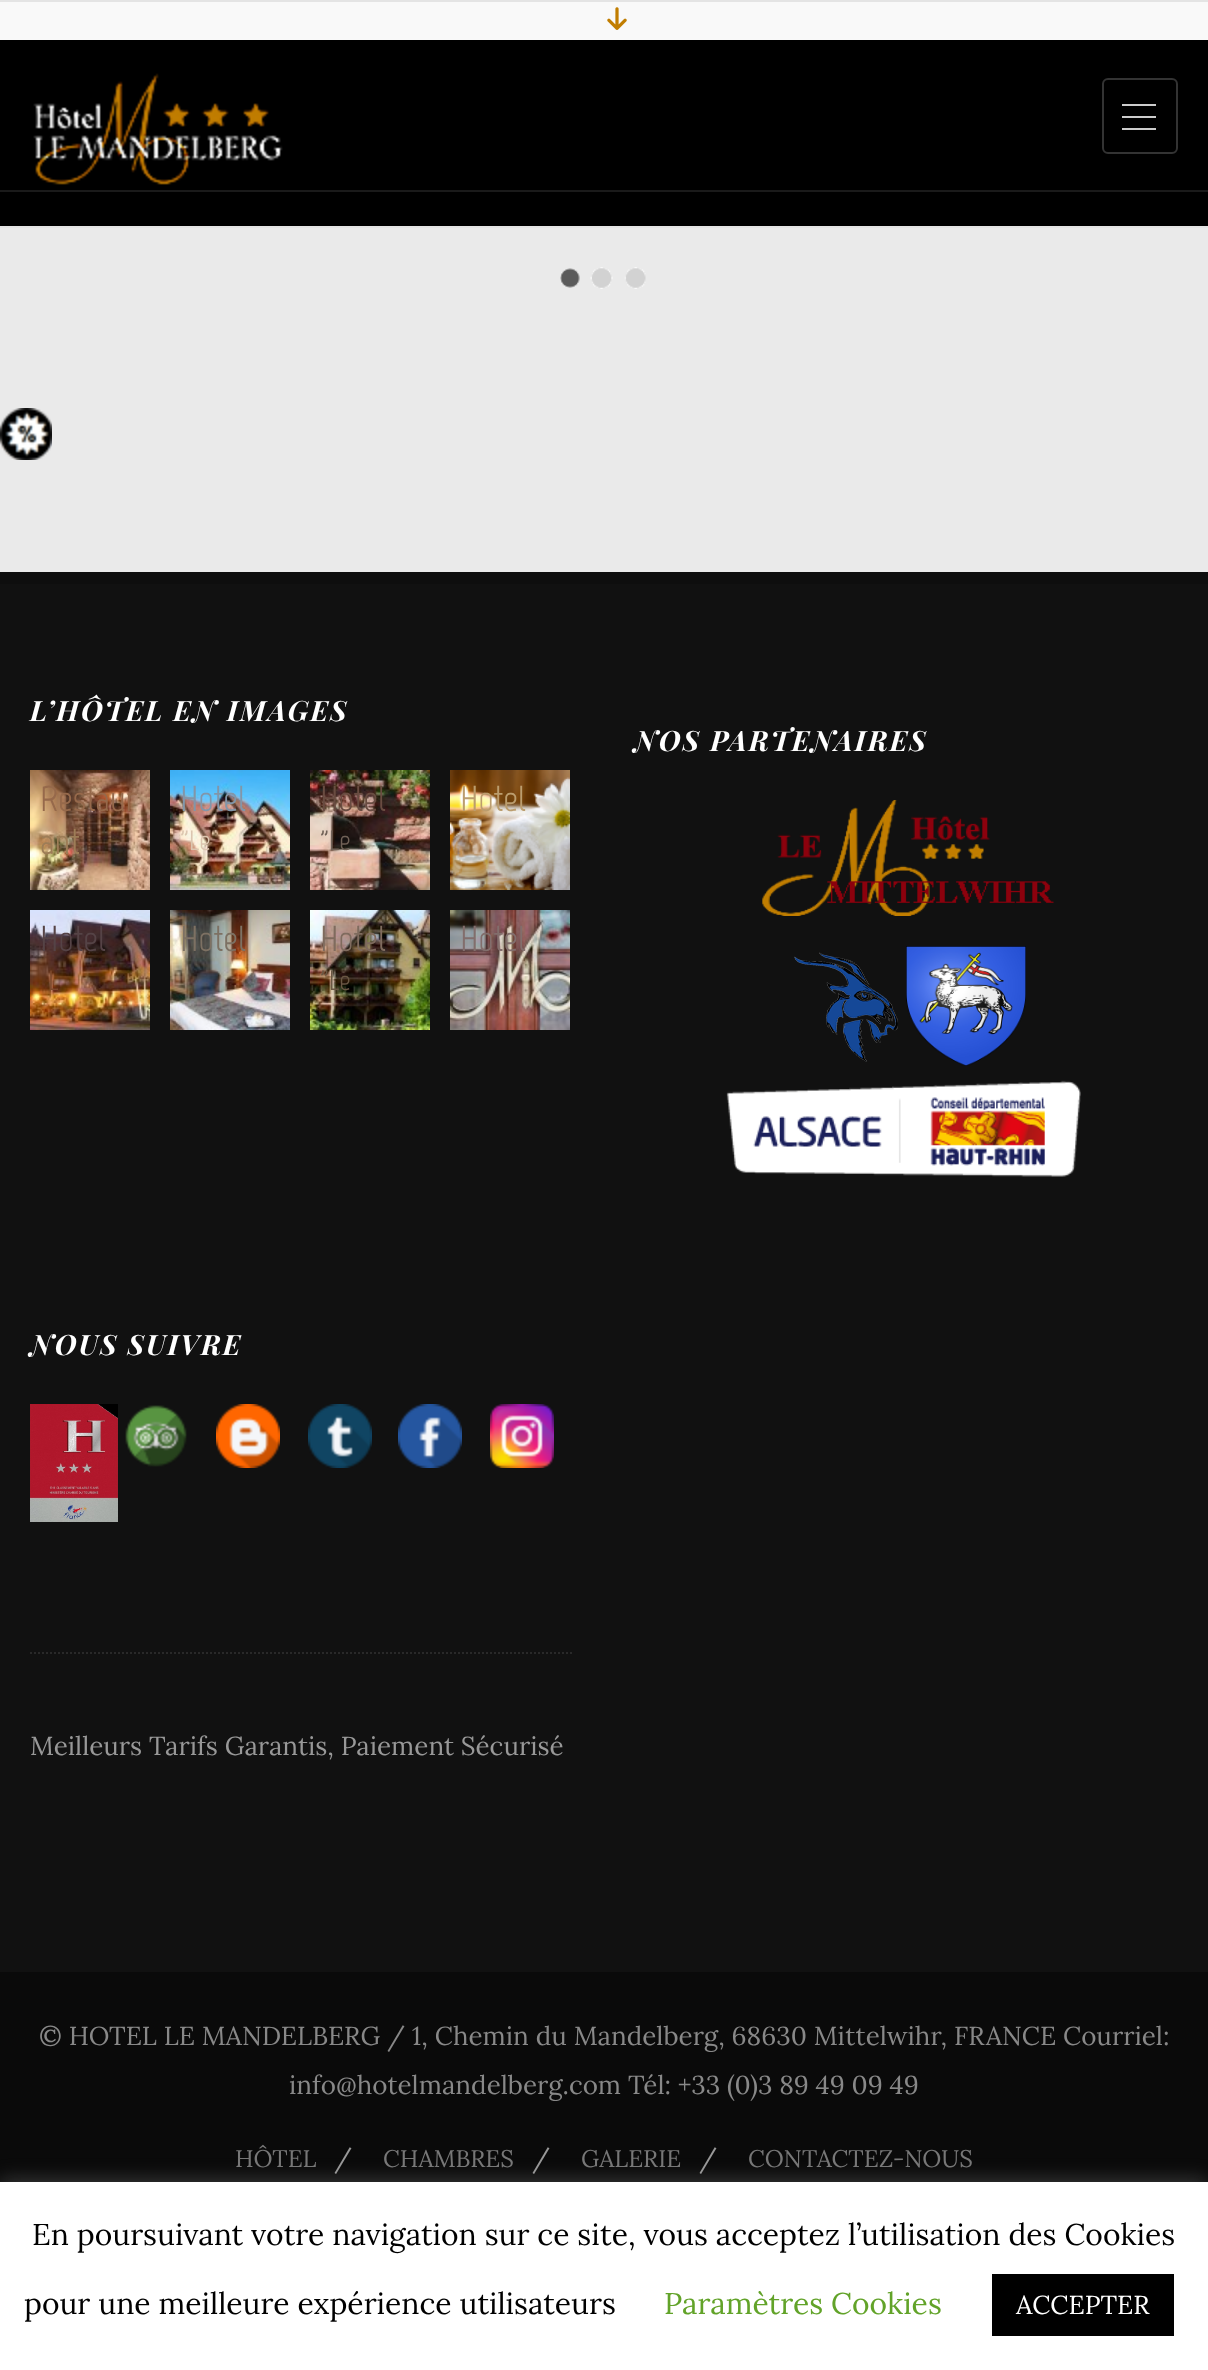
async function draw(canvas) {
  canvas.width = 1208
  canvas.height = 2370
  const ctx = canvas.getContext('2d')
  ctx.miterLimit = 4
  ctx.fontKerning = 'normal'
  async function loadImage(src) {
    const img = new Image()
    img.src = src
    await img.decode()
    return img
  }

  ctx.fillStyle = '#eaeaea'
  ctx.fillRect(0, 0, 1208, 2370)
  ctx.fillStyle = '#f9f9f9'
  ctx.fillRect(0, 2, 1208, 38)
  ctx.fillStyle = '#e4e4e4'
  ctx.fillRect(0, 0, 1208, 2)
  ctx.drawImage(await loadImage('image0.png'), 607, 7, 20, 23)
  ctx.fillStyle = '#000'
  ctx.fillRect(0, 192, 1208, 34)
  ctx.fillStyle = '#e4e4e4'
  ctx.fillRect(0, 226, 1208, 2)
  ctx.fillStyle = '#000'
  ctx.fillRect(0, 40, 1208, 150)
  ctx.fillStyle = '#1a1a1a'
  ctx.fillRect(0, 190, 1208, 2)
  ctx.beginPath()
  ctx.roundRect(1103, 79, 74, 74, 5)
  ctx.strokeStyle = '#333'
  ctx.lineWidth = 2
  ctx.stroke()
  ctx.fillStyle = '#ccc'
  ctx.fillRect(1122, 116, 34, 2)
  ctx.fillRect(1122, 104, 34, 2)
  ctx.fillRect(1122, 128, 34, 2)
  ctx.drawImage(await loadImage('image1.png'), 33, 73, 250, 112)
  ctx.drawImage(await loadImage('image2.png'), 560, 267, 86, 22)
  ctx.drawImage(await loadImage('image3.png'), 0, 408, 52, 52)
  ctx.fillStyle = '#111'
  ctx.fillRect(0, 584, 1208, 1388)
  ctx.fillStyle = '#0e0e0e'
  ctx.fillRect(0, 572, 1208, 12)
  ctx.letterSpacing = '2px'
  ctx.font = 'italic bold 28px Playfair Display'
  ctx.fillStyle = '#fff'
  ctx.fillText('L’HÔTEL EN IMAGES', 30, 721)
  ctx.drawImage(await loadImage('image4.png'), 30, 770, 120, 120)
  ctx.letterSpacing = '0px'
  ctx.font = '36px Marvel'
  ctx.fillStyle = '#96694b'
  ctx.fillText('Restaur', 40, 811)
  ctx.fillStyle = '#9d7d57'
  ctx.fillText('ant', 40, 854)
  ctx.drawImage(await loadImage('image5.png'), 170, 770, 120, 120)
  ctx.fillStyle = '#8296a9'
  ctx.fillText('Hotel', 180, 811)
  ctx.font = '28px Marvel'
  ctx.fillStyle = '#dcc6b0'
  ctx.fillText('"Le', 180, 850)
  ctx.drawImage(await loadImage('image6.png'), 310, 770, 120, 120)
  ctx.font = '36px Marvel'
  ctx.fillStyle = '#694c41'
  ctx.fillText('Hotel', 320, 811)
  ctx.font = '28px Marvel'
  ctx.fillStyle = '#706157'
  ctx.fillText('"Le', 320, 850)
  ctx.drawImage(await loadImage('image7.png'), 450, 770, 120, 120)
  ctx.font = '36px Marvel'
  ctx.fillStyle = '#bb9d6e'
  ctx.fillText('Hotel', 460, 811)
  ctx.drawImage(await loadImage('image8.png'), 30, 910, 120, 120)
  ctx.fillStyle = '#554346'
  ctx.fillText('Hotel', 40, 951)
  ctx.font = '28px Marvel'
  ctx.fillStyle = '#7c492c'
  ctx.fillText('L', 48, 990)
  ctx.drawImage(await loadImage('image9.png'), 170, 910, 120, 120)
  ctx.font = '36px Marvel'
  ctx.fillStyle = '#7d7163'
  ctx.fillText('Hotel', 180, 951)
  ctx.drawImage(await loadImage('image10.png'), 310, 910, 120, 120)
  ctx.fillStyle = '#7f6b5e'
  ctx.fillText('Hotel', 320, 951)
  ctx.font = '28px Marvel'
  ctx.fillStyle = '#695743'
  ctx.fillText('"Le', 320, 990)
  ctx.drawImage(await loadImage('image11.png'), 450, 910, 120, 120)
  ctx.font = '36px Marvel'
  ctx.fillStyle = '#826e6c'
  ctx.fillText('Hotel', 460, 951)
  ctx.letterSpacing = '2px'
  ctx.font = 'italic bold 28px Playfair Display'
  ctx.fillStyle = '#fff'
  ctx.fillText('NOS PARTENAIRES', 634, 751)
  ctx.drawImage(await loadImage('image12.png'), 762, 800, 292, 116)
  ctx.drawImage(await loadImage('image13.png'), 794, 952, 104, 110)
  ctx.drawImage(await loadImage('image14.png'), 906, 946, 120, 120)
  ctx.drawImage(await loadImage('image15.png'), 726, 1080, 355, 97)
  ctx.fillText('NOUS SUIVRE', 30, 1355)
  ctx.drawImage(await loadImage('image16.png'), 30, 1404, 88, 118)
  ctx.drawImage(await loadImage('image17.png'), 125, 1405, 62, 62)
  ctx.drawImage(await loadImage('image18.png'), 216, 1404, 64, 64)
  ctx.drawImage(await loadImage('image19.png'), 308, 1404, 64, 64)
  ctx.drawImage(await loadImage('image20.png'), 398, 1404, 64, 64)
  ctx.drawImage(await loadImage('image21.png'), 490, 1404, 64, 64)
  ctx.beginPath()
  ctx.moveTo(30, 1653)
  ctx.lineTo(574, 1653)
  ctx.strokeStyle = '#292929'
  ctx.setLineDash([2, 2])
  ctx.stroke()
  ctx.letterSpacing = '0px'
  ctx.font = '26px Lora'
  ctx.fillStyle = '#989898'
  ctx.fillText('Meilleurs Tarifs Garantis, Paiement Sécurisé', 30, 1755)
  ctx.fillStyle = '#0a0a0a'
  ctx.fillRect(0, 1972, 1208, 210)
  ctx.fillStyle = '#888'
  ctx.fillText('© HOTEL LE MANDELBERG / 1, Chemin du Mandelberg, 68630 Mittelwihr, FRANCE Courriel:', 39, 2045)
  ctx.fillText('info@hotelmandelberg.com Tél: +33 (0)3 89 49 09 49', 289, 2094)
  ctx.font = '24px Lora'
  ctx.fillStyle = '#777'
  ctx.fillText('HÔTEL', 235, 2167)
  ctx.font = '26px Lora'
  ctx.fillStyle = '#989898'
  ctx.fillText('/', 334, 2167)
  ctx.font = '24px Lora'
  ctx.fillStyle = '#777'
  ctx.fillText('CHAMBRES', 383, 2167)
  ctx.font = '26px Lora'
  ctx.fillStyle = '#989898'
  ctx.fillText('/', 532, 2167)
  ctx.font = '24px Lora'
  ctx.fillStyle = '#777'
  ctx.fillText('GALERIE', 581, 2167)
  ctx.font = '26px Lora'
  ctx.fillStyle = '#989898'
  ctx.fillText('/', 699, 2167)
  ctx.font = '24px Lora'
  ctx.fillStyle = '#777'
  ctx.fillText('CONTACTEZ-NOUS', 748, 2167)
  ctx.fillStyle = '#acabab4d'
  ctx.filter = 'blur(10px)'
  ctx.beginPath()
  ctx.rect(0, 2180, 1208, 188)
  ctx.fill()
  ctx.filter = 'none'
  ctx.fillStyle = '#fff'
  ctx.fillRect(0, 2182, 1208, 188)
  ctx.font = '30px Lora'
  ctx.fillStyle = '#000'
  ctx.fillText('En poursuivant votre navigation sur ce site, vous acceptez l’utilisation des Cookies', 32, 2245)
  ctx.fillText('pour une meilleure expérience utilisateurs', 24, 2314)
  ctx.fillStyle = '#62a329'
  ctx.fillText('Paramètres Cookies', 664, 2314)
  ctx.fillStyle = '#000'
  ctx.fillRect(992, 2274, 182, 62)
  ctx.font = '26px Lora'
  ctx.fillStyle = '#fff'
  ctx.fillText('ACCEPTER', 1016, 2314)
}

draw(document.querySelector('canvas'))
